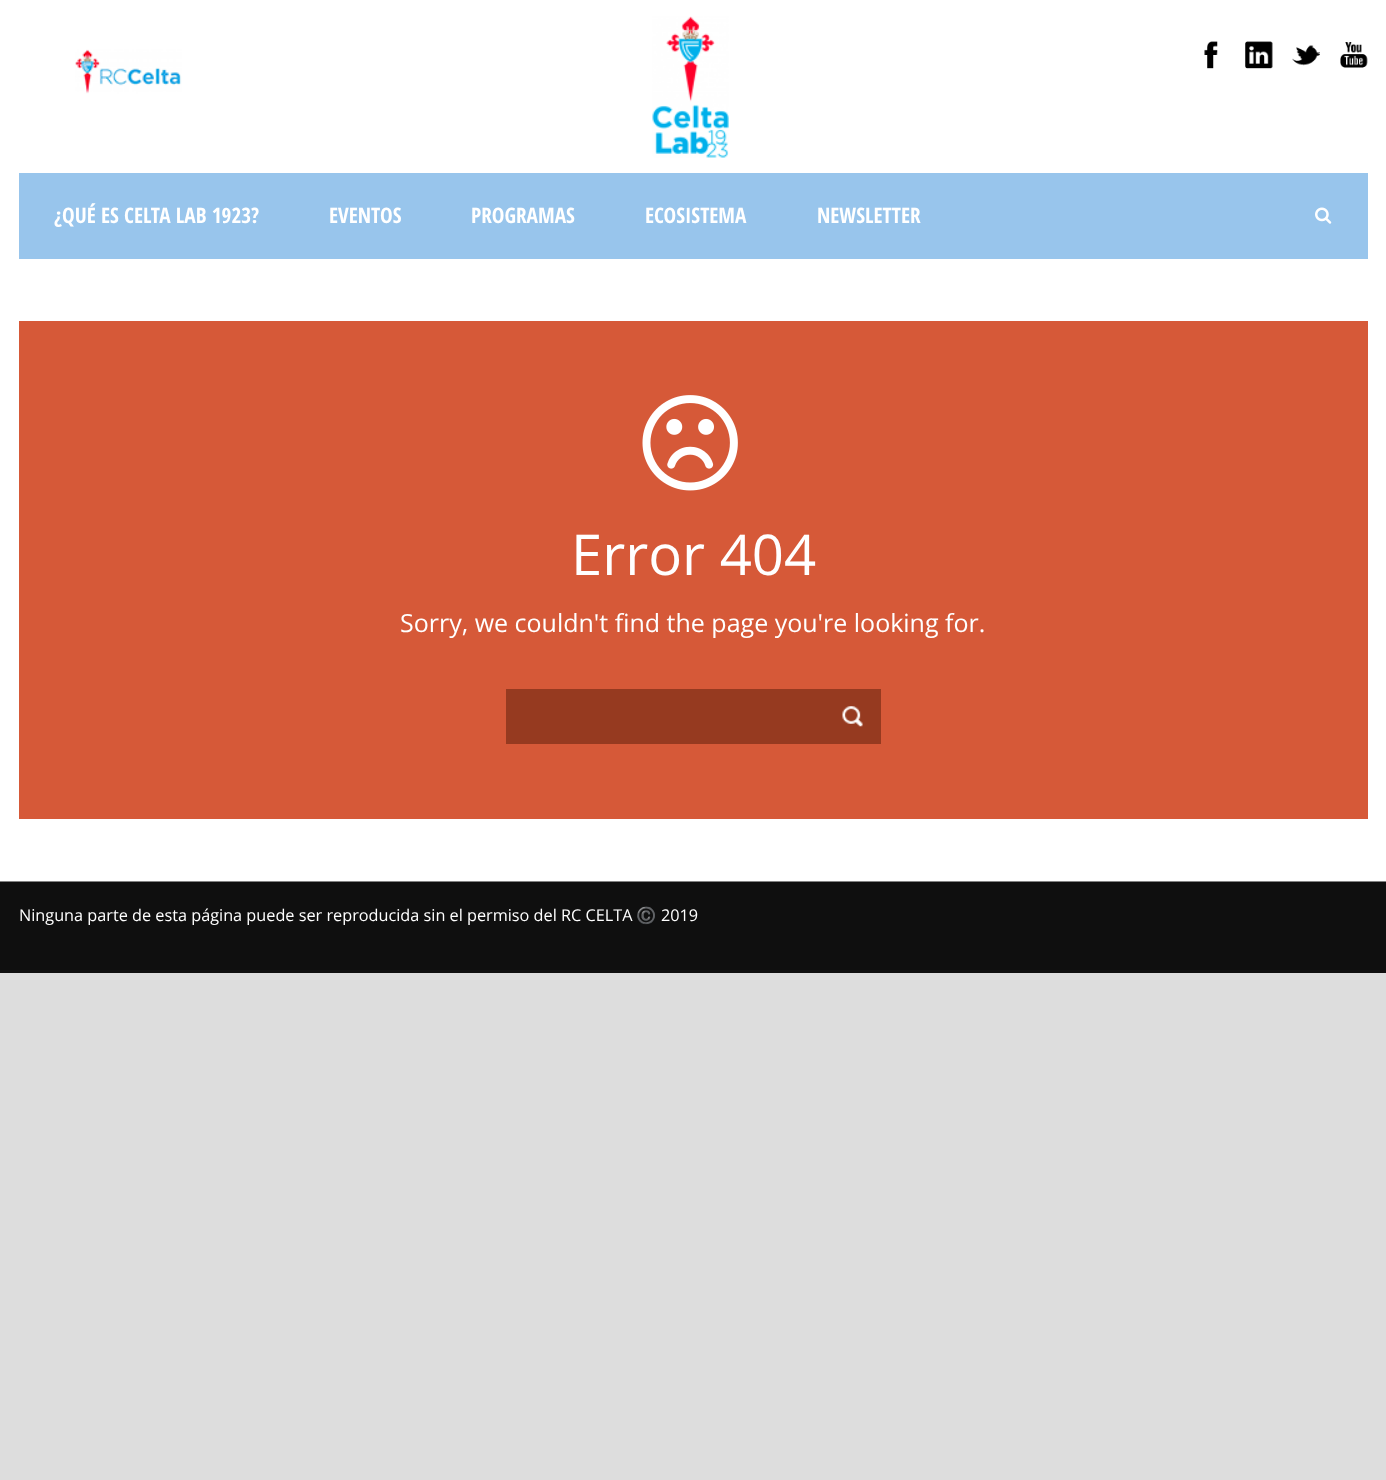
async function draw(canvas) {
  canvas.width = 1386
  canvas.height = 1480
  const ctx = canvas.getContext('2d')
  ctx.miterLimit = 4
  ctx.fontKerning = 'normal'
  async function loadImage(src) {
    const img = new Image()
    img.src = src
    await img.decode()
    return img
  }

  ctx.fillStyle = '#ddd'
  ctx.fillRect(0, 0, 1386, 1480)
  ctx.fillStyle = '#fff'
  ctx.fillRect(0, 0, 1386, 881)
  ctx.drawImage(await loadImage('image0.png'), 75, 49, 107, 45)
  ctx.drawImage(await loadImage('image1.png'), 1204, 41, 14, 28)
  ctx.drawImage(await loadImage('image2.png'), 1245, 41, 28, 28)
  ctx.drawImage(await loadImage('image3.png'), 1292, 45, 28, 21)
  ctx.drawImage(await loadImage('image4.png'), 1340, 42, 28, 26)
  ctx.drawImage(await loadImage('image5.png'), 652, 16, 77, 142)
  ctx.fillStyle = '#98c5ec'
  ctx.fillRect(19, 173, 1349, 86)
  ctx.font = 'bold 21.25px Open Sans Condensed'
  ctx.fillStyle = '#fff'
  ctx.fillText('¿QUÉ ES CELTA LAB 1923?', 54, 223)
  ctx.fillText('EVENTOS', 329, 223)
  ctx.fillText('PROGRAMAS', 471, 223)
  ctx.fillText('ECOSISTEMA', 645, 223)
  ctx.fillText('NEWSLETTER', 817, 223)
  ctx.drawImage(await loadImage('image6.png'), 1315, 207, 17, 17)
  ctx.fillStyle = '#d65938'
  ctx.fillRect(19, 321, 1349, 498)
  ctx.drawImage(await loadImage('image7.png'), 642, 395, 96, 96)
  ctx.font = '56.25px Open Sans'
  ctx.fillStyle = '#fff'
  ctx.fillText('Error 404', 571, 575)
  ctx.font = '25px Open Sans'
  ctx.fillText('Sorry, we couldn\'t find the page you\'re looking for.', 400, 632)
  ctx.fillStyle = '#963a20'
  ctx.fillRect(506, 689, 375, 55)
  ctx.drawImage(await loadImage('image8.png'), 842, 706, 21, 21)
  ctx.fillStyle = '#0f0f0f'
  ctx.fillRect(0, 882, 1386, 91)
  ctx.fillStyle = '#828282'
  ctx.fillRect(0, 881, 1386, 1)
  ctx.font = '16.25px Open Sans'
  ctx.fillStyle = '#fff'
  ctx.fillText('Ninguna parte de esta página puede ser reproducida sin el permiso del RC CELTA', 19, 921)
  ctx.font = '16.25px Noto Color Emoji'
  ctx.fillText('©️', 636, 921)
  ctx.font = '16.25px Open Sans'
  ctx.fillText('2019', 661, 921)
}

draw(document.querySelector('canvas'))
